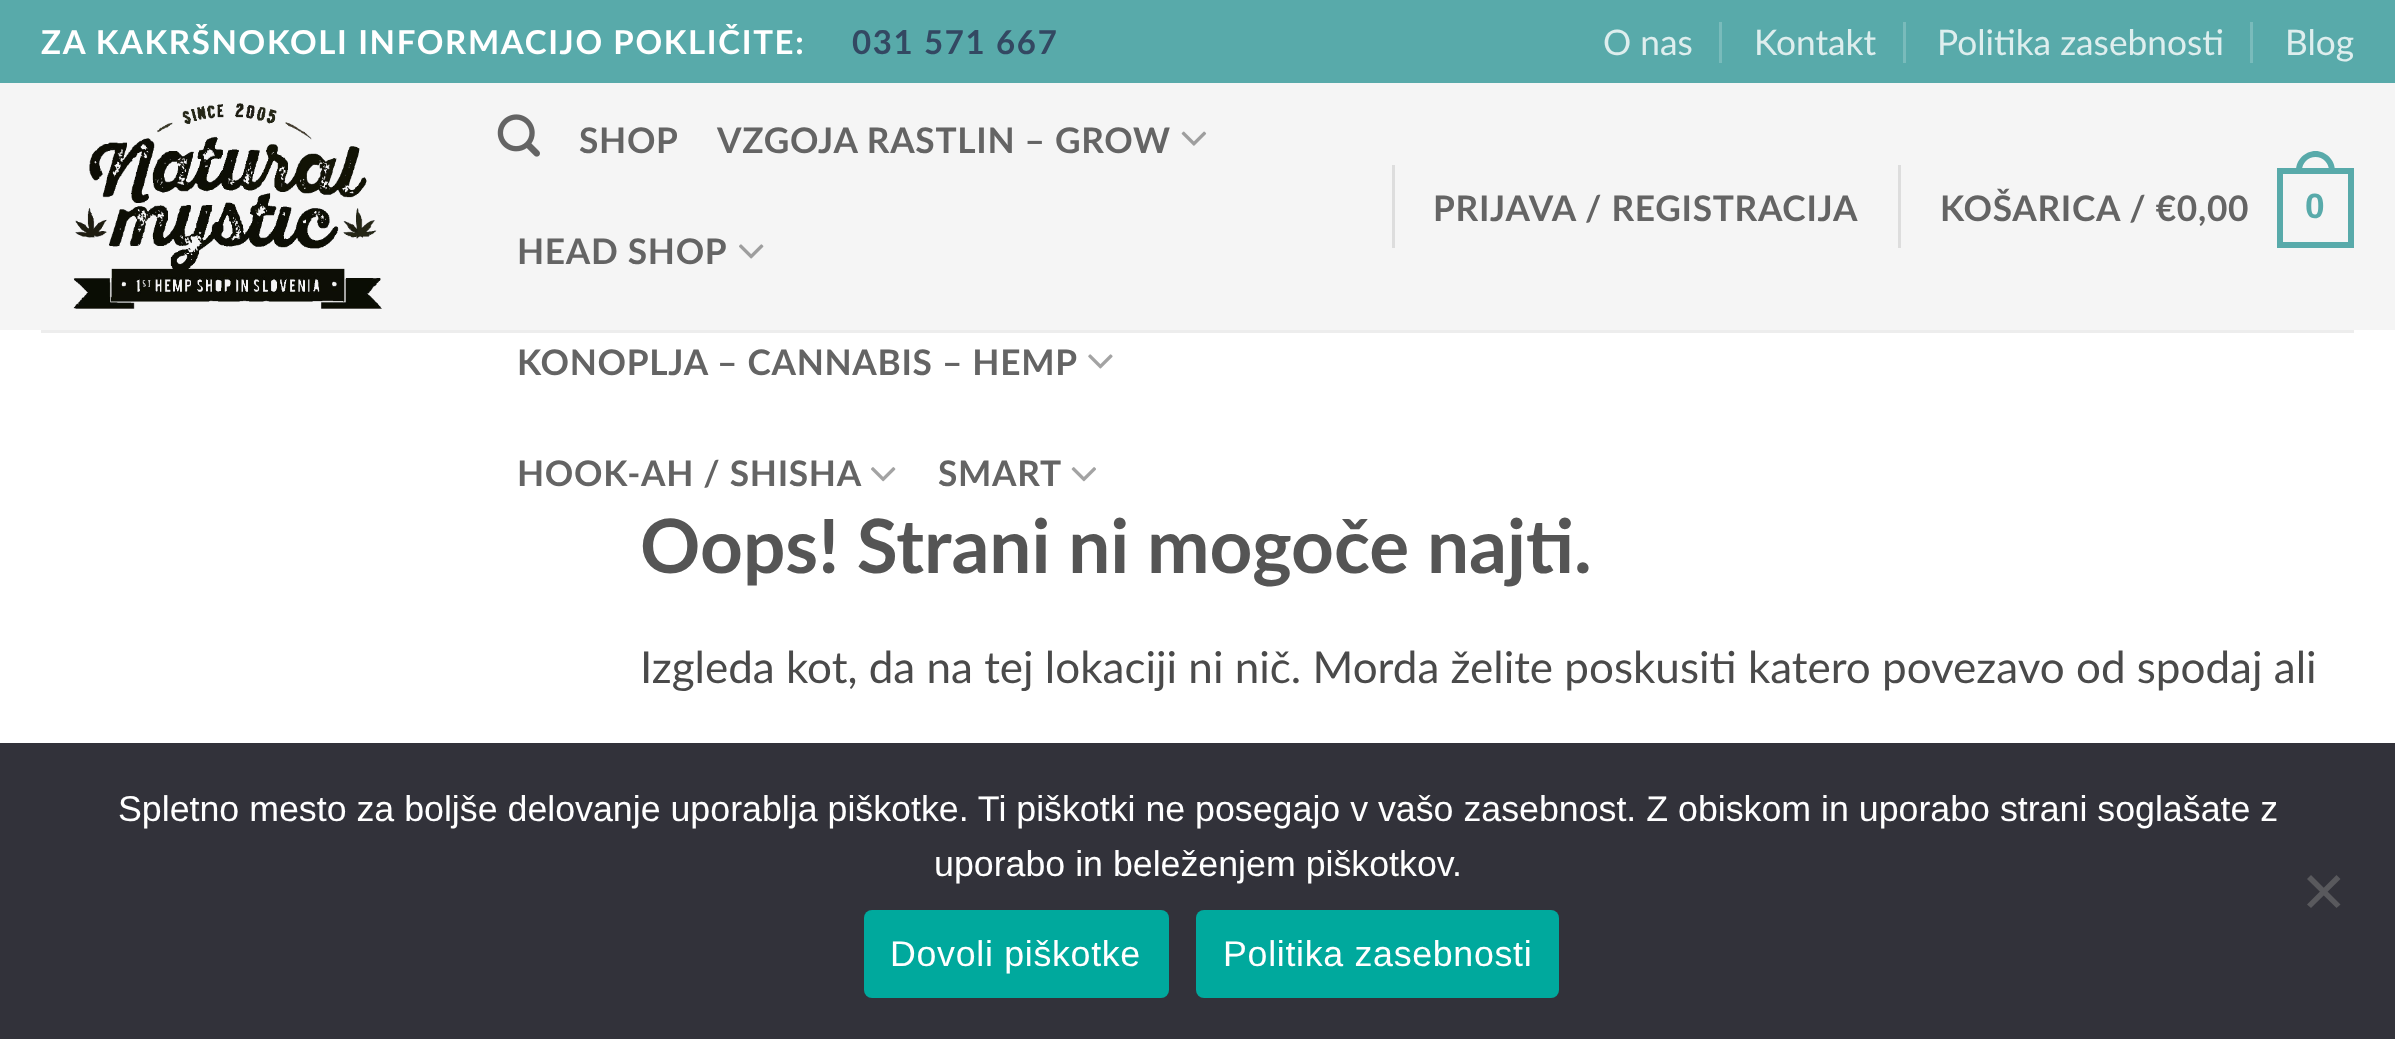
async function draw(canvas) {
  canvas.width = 2395
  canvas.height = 1039
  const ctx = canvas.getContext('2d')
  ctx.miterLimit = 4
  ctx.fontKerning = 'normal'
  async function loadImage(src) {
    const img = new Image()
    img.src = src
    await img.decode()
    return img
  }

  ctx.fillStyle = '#fff'
  ctx.fillRect(0, 0, 2395, 1039)
  ctx.fillStyle = '#58aaaa'
  ctx.fillRect(0, 0, 2395, 83)
  ctx.letterSpacing = '1.65px'
  ctx.font = 'bold 33px Lato'
  ctx.fillStyle = '#fff'
  ctx.fillText('ZA KAKRŠNOKOLI INFORMACIJO POKLIČITE:', 41, 54)
  ctx.fillStyle = '#334862'
  ctx.fillText('031 571 667', 852, 54)
  ctx.letterSpacing = '0px'
  ctx.font = '35.25px Lato'
  ctx.fillStyle = '#deeeee'
  ctx.fillText('O nas', 1603, 55)
  ctx.fillStyle = '#79bbbb'
  ctx.fillRect(1719, 22, 3, 41)
  ctx.fillStyle = '#deeeee'
  ctx.fillText('Kontakt', 1754, 55)
  ctx.fillStyle = '#79bbbb'
  ctx.fillRect(1903, 22, 3, 41)
  ctx.fillStyle = '#deeeee'
  ctx.fillText('Politika zasebnosti', 1937, 55)
  ctx.fillStyle = '#79bbbb'
  ctx.fillRect(2250, 22, 3, 41)
  ctx.fillStyle = '#deeeee'
  ctx.fillText('Blog', 2285, 55)
  ctx.fillStyle = '#f5f5f5'
  ctx.fillRect(0, 83, 2395, 247)
  ctx.drawImage(await loadImage('image0.png'), 73, 103, 309, 206)
  ctx.drawImage(await loadImage('image1.png'), 497, 114, 43, 43)
  ctx.letterSpacing = '0.7px'
  ctx.font = 'bold 35.25px Lato'
  ctx.fillStyle = '#646464'
  ctx.fillText('SHOP', 579, 153)
  ctx.fillText('VZGOJA RASTLIN – GROW', 717, 153)
  ctx.drawImage(await loadImage('image2.png'), 1181, 131, 26, 15)
  ctx.fillText('HEAD SHOP', 517, 264)
  ctx.drawImage(await loadImage('image3.png'), 739, 244, 25, 15)
  ctx.fillText('KONOPLJA – CANNABIS – HEMP', 517, 375)
  ctx.drawImage(await loadImage('image4.png'), 1088, 354, 25, 15)
  ctx.fillText('HOOK-AH / SHISHA', 517, 486)
  ctx.drawImage(await loadImage('image5.png'), 871, 467, 25, 15)
  ctx.fillText('SMART', 938, 486)
  ctx.drawImage(await loadImage('image6.png'), 1071, 467, 25, 15)
  ctx.fillStyle = '#ddd'
  ctx.fillRect(1392, 165, 3, 83)
  ctx.fillStyle = '#646464'
  ctx.fillText('PRIJAVA / REGISTRACIJA', 1433, 221)
  ctx.fillStyle = '#ddd'
  ctx.fillRect(1898, 165, 3, 83)
  ctx.fillStyle = '#646464'
  ctx.fillText('KOŠARICA / €0,00', 1940, 221)
  ctx.strokeStyle = '#58aaaa'
  ctx.lineWidth = 6
  ctx.strokeRect(2280, 171, 71, 74)
  ctx.fillStyle = '#58aaaa'
  ctx.beginPath()
  ctx.moveTo(2315.5, 151)
  ctx.bezierCurveTo(2326, 151, 2335, 160, 2335, 170.5)
  ctx.lineTo(2335, 173)
  ctx.lineTo(2296, 173)
  ctx.lineTo(2296, 170.5)
  ctx.bezierCurveTo(2296, 160, 2305, 151, 2315.5, 151)
  ctx.closePath()
  ctx.moveTo(2315.5, 157)
  ctx.bezierCurveTo(2323, 157, 2329, 163, 2329, 170.5)
  ctx.lineTo(2329, 173)
  ctx.lineTo(2302, 173)
  ctx.lineTo(2302, 170.5)
  ctx.bezierCurveTo(2302, 163, 2308, 157, 2315.5, 157)
  ctx.closePath()
  ctx.fill('evenodd')
  ctx.font = 'bold 35.25px Liberation Sans'
  ctx.fillText('0', 2305, 218)
  ctx.fillStyle = '#ededed'
  ctx.fillRect(41, 330, 2313, 3)
  ctx.letterSpacing = '0px'
  ctx.wordSpacing = '-0.5px'
  ctx.font = 'bold 74.75px Lato'
  ctx.fillStyle = '#555'
  ctx.fillText('Oops! Strani ni mogoče najti.', 640, 573)
  ctx.wordSpacing = '0px'
  ctx.font = '44px Lato'
  ctx.fillStyle = '#4a4a4a'
  ctx.fillText('Izgleda kot, da na tej lokaciji ni nič. Morda želite poskusiti katero povezavo od spodaj ali', 640, 683)
  ctx.fillStyle = '#32323a'
  ctx.fillRect(0, 743, 2395, 296)
  ctx.font = '35.75px Liberation Sans'
  ctx.fillStyle = '#fff'
  ctx.fillText('Spletno mesto za boljše delovanje uporablja piškotke. Ti piškotki ne posegajo v vašo zasebnost. Z obiskom in uporabo strani soglašate z', 118, 821)
  ctx.fillText('uporabo in beleženjem piškotkov.', 934, 876)
  ctx.fillStyle = '#59595d'
  ctx.beginPath()
  ctx.moveTo(2336.5, 875)
  ctx.lineTo(2340.5, 879)
  ctx.lineTo(2311, 908)
  ctx.lineTo(2307, 904.5)
  ctx.closePath()
  ctx.fill()
  ctx.beginPath()
  ctx.moveTo(2307, 879)
  ctx.lineTo(2311, 875)
  ctx.lineTo(2340.5, 904.5)
  ctx.lineTo(2336.5, 908)
  ctx.closePath()
  ctx.fill()
  ctx.fillStyle = '#00a99d'
  ctx.beginPath()
  ctx.roundRect(864, 910, 305, 88, 8)
  ctx.fill()
  ctx.letterSpacing = '0.7px'
  ctx.fillStyle = '#fff'
  ctx.fillText('Dovoli piškotke', 890, 966)
  ctx.fillStyle = '#00a99d'
  ctx.beginPath()
  ctx.roundRect(1196, 910, 363, 88, 8)
  ctx.fill()
  ctx.fillStyle = '#fff'
  ctx.fillText('Politika zasebnosti', 1223, 966)
}

draw(document.querySelector('canvas'))
